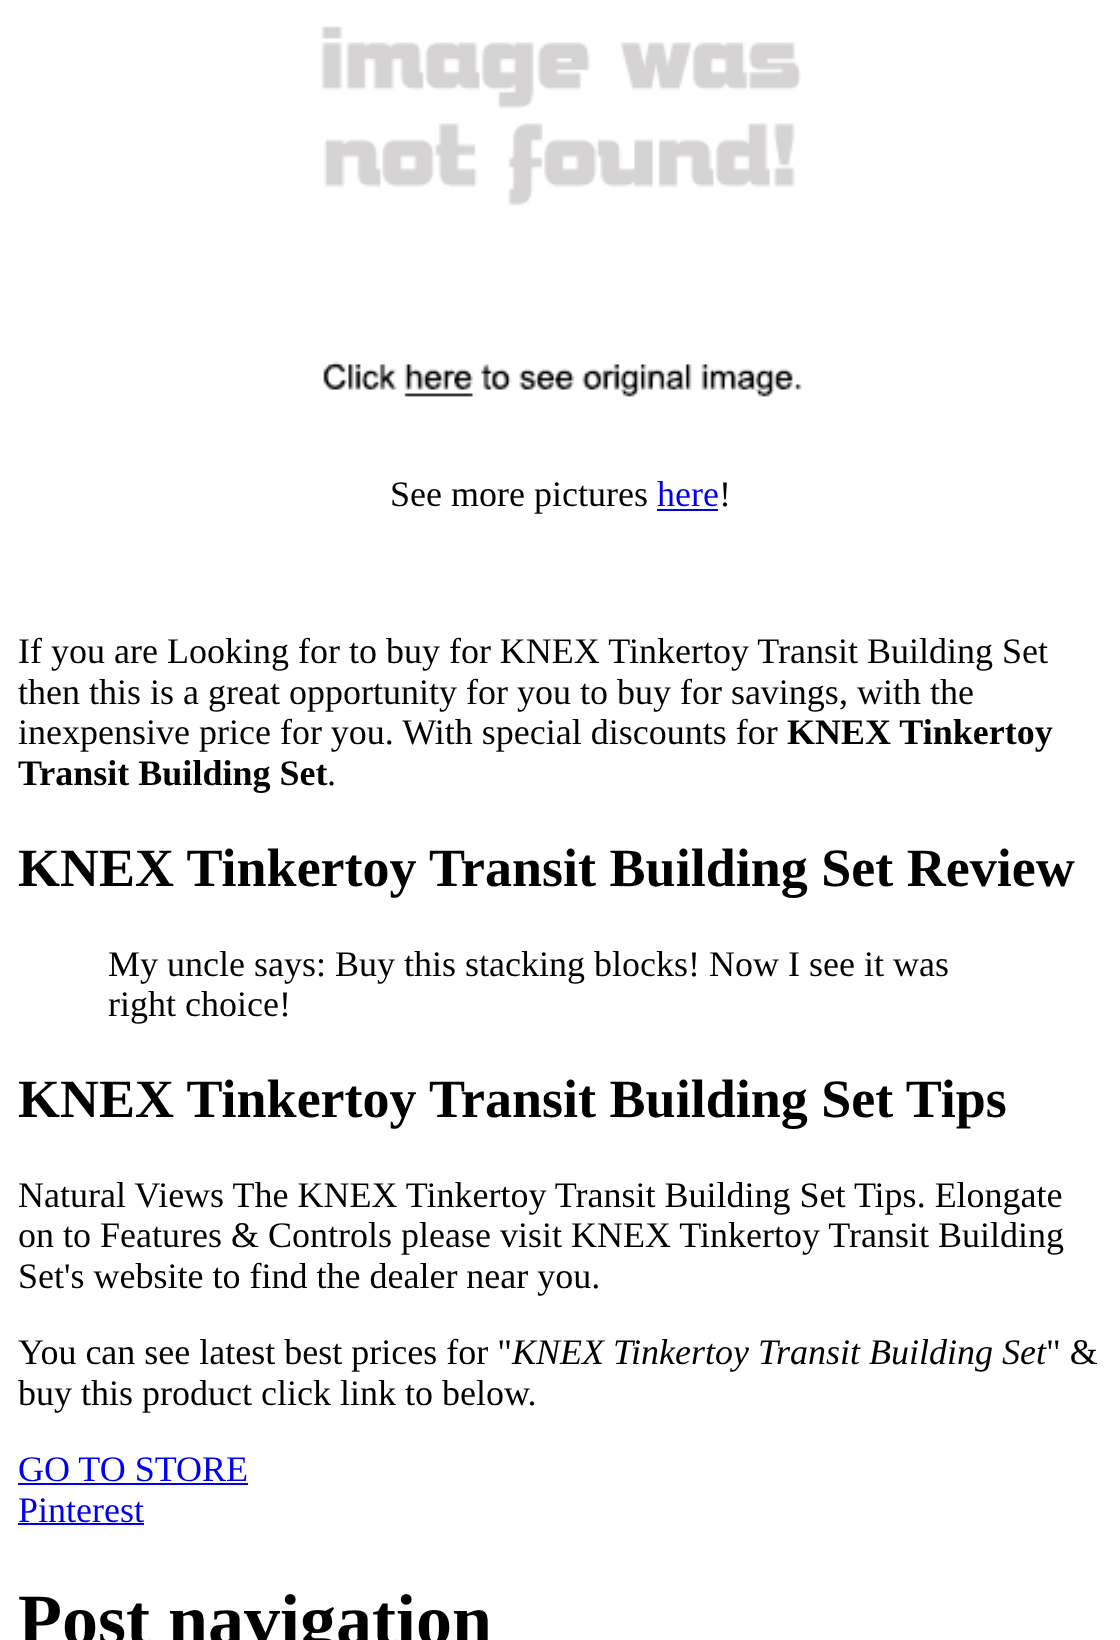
async function draw(canvas) {
  canvas.width = 1120
  canvas.height = 1640
  const ctx = canvas.getContext('2d')
  ctx.miterLimit = 4
  ctx.fontKerning = 'normal'
  async function loadImage(src) {
    const img = new Image()
    img.src = src
    await img.decode()
    return img
  }

  ctx.fillStyle = '#fff'
  ctx.fillRect(0, 0, 1120, 1640)
  ctx.drawImage(await loadImage('image0.png'), 321, 26, 481, 371)
  ctx.font = '36px Liberation Serif'
  ctx.fillStyle = '#000'
  ctx.fillText('See more pictures', 390, 506)
  ctx.fillStyle = '#00e'
  ctx.fillText('here', 657, 506)
  ctx.fillRect(657, 509, 61, 2)
  ctx.fillStyle = '#000'
  ctx.fillText('!', 719, 506)
  ctx.fillText('If you are Looking for to buy for KNEX Tinkertoy Transit Building Set', 18, 663)
  ctx.fillText('then this is a great opportunity for you to buy for savings, with the', 18, 704)
  ctx.fillText('inexpensive price for you. With special discounts for', 18, 744)
  ctx.font = 'bold 36px Liberation Serif'
  ctx.fillText('KNEX Tinkertoy', 787, 744)
  ctx.fillText('Transit Building Set', 18, 785)
  ctx.font = '36px Liberation Serif'
  ctx.fillText('.', 327, 785)
  ctx.font = 'bold 54px Liberation Serif'
  ctx.fillText('KNEX Tinkertoy Transit Building Set Review', 18, 886)
  ctx.font = '36px Liberation Serif'
  ctx.fillText('My uncle says: Buy this stacking blocks! Now I see it was', 108, 976)
  ctx.fillText('right choice!', 108, 1016)
  ctx.font = 'bold 54px Liberation Serif'
  ctx.fillText('KNEX Tinkertoy Transit Building Set Tips', 18, 1117)
  ctx.font = '36px Liberation Serif'
  ctx.fillText('Natural Views The KNEX Tinkertoy Transit Building Set Tips. Elongate', 18, 1207)
  ctx.fillText('on to Features & Controls please visit KNEX Tinkertoy Transit Building', 18, 1247)
  ctx.fillText('Set\'s website to find the dealer near you.', 18, 1288)
  ctx.fillText('You can see latest best prices for "', 18, 1364)
  ctx.font = 'italic 36px Liberation Serif'
  ctx.fillText('KNEX Tinkertoy Transit Building Set', 512, 1364)
  ctx.font = '36px Liberation Serif'
  ctx.fillText('" &', 1046, 1364)
  ctx.fillText('buy this product click link to below.', 18, 1405)
  ctx.fillStyle = '#00e'
  ctx.fillText('GO TO STORE', 18, 1481)
  ctx.fillRect(18, 1483, 230, 2)
  ctx.fillText('Pinterest', 18, 1522)
  ctx.fillRect(18, 1523, 126, 2)
  ctx.font = 'bold 72px Liberation Serif'
  ctx.fillStyle = '#000'
  ctx.fillText('Post navigation', 18, 1644)
}

draw(document.querySelector('canvas'))
